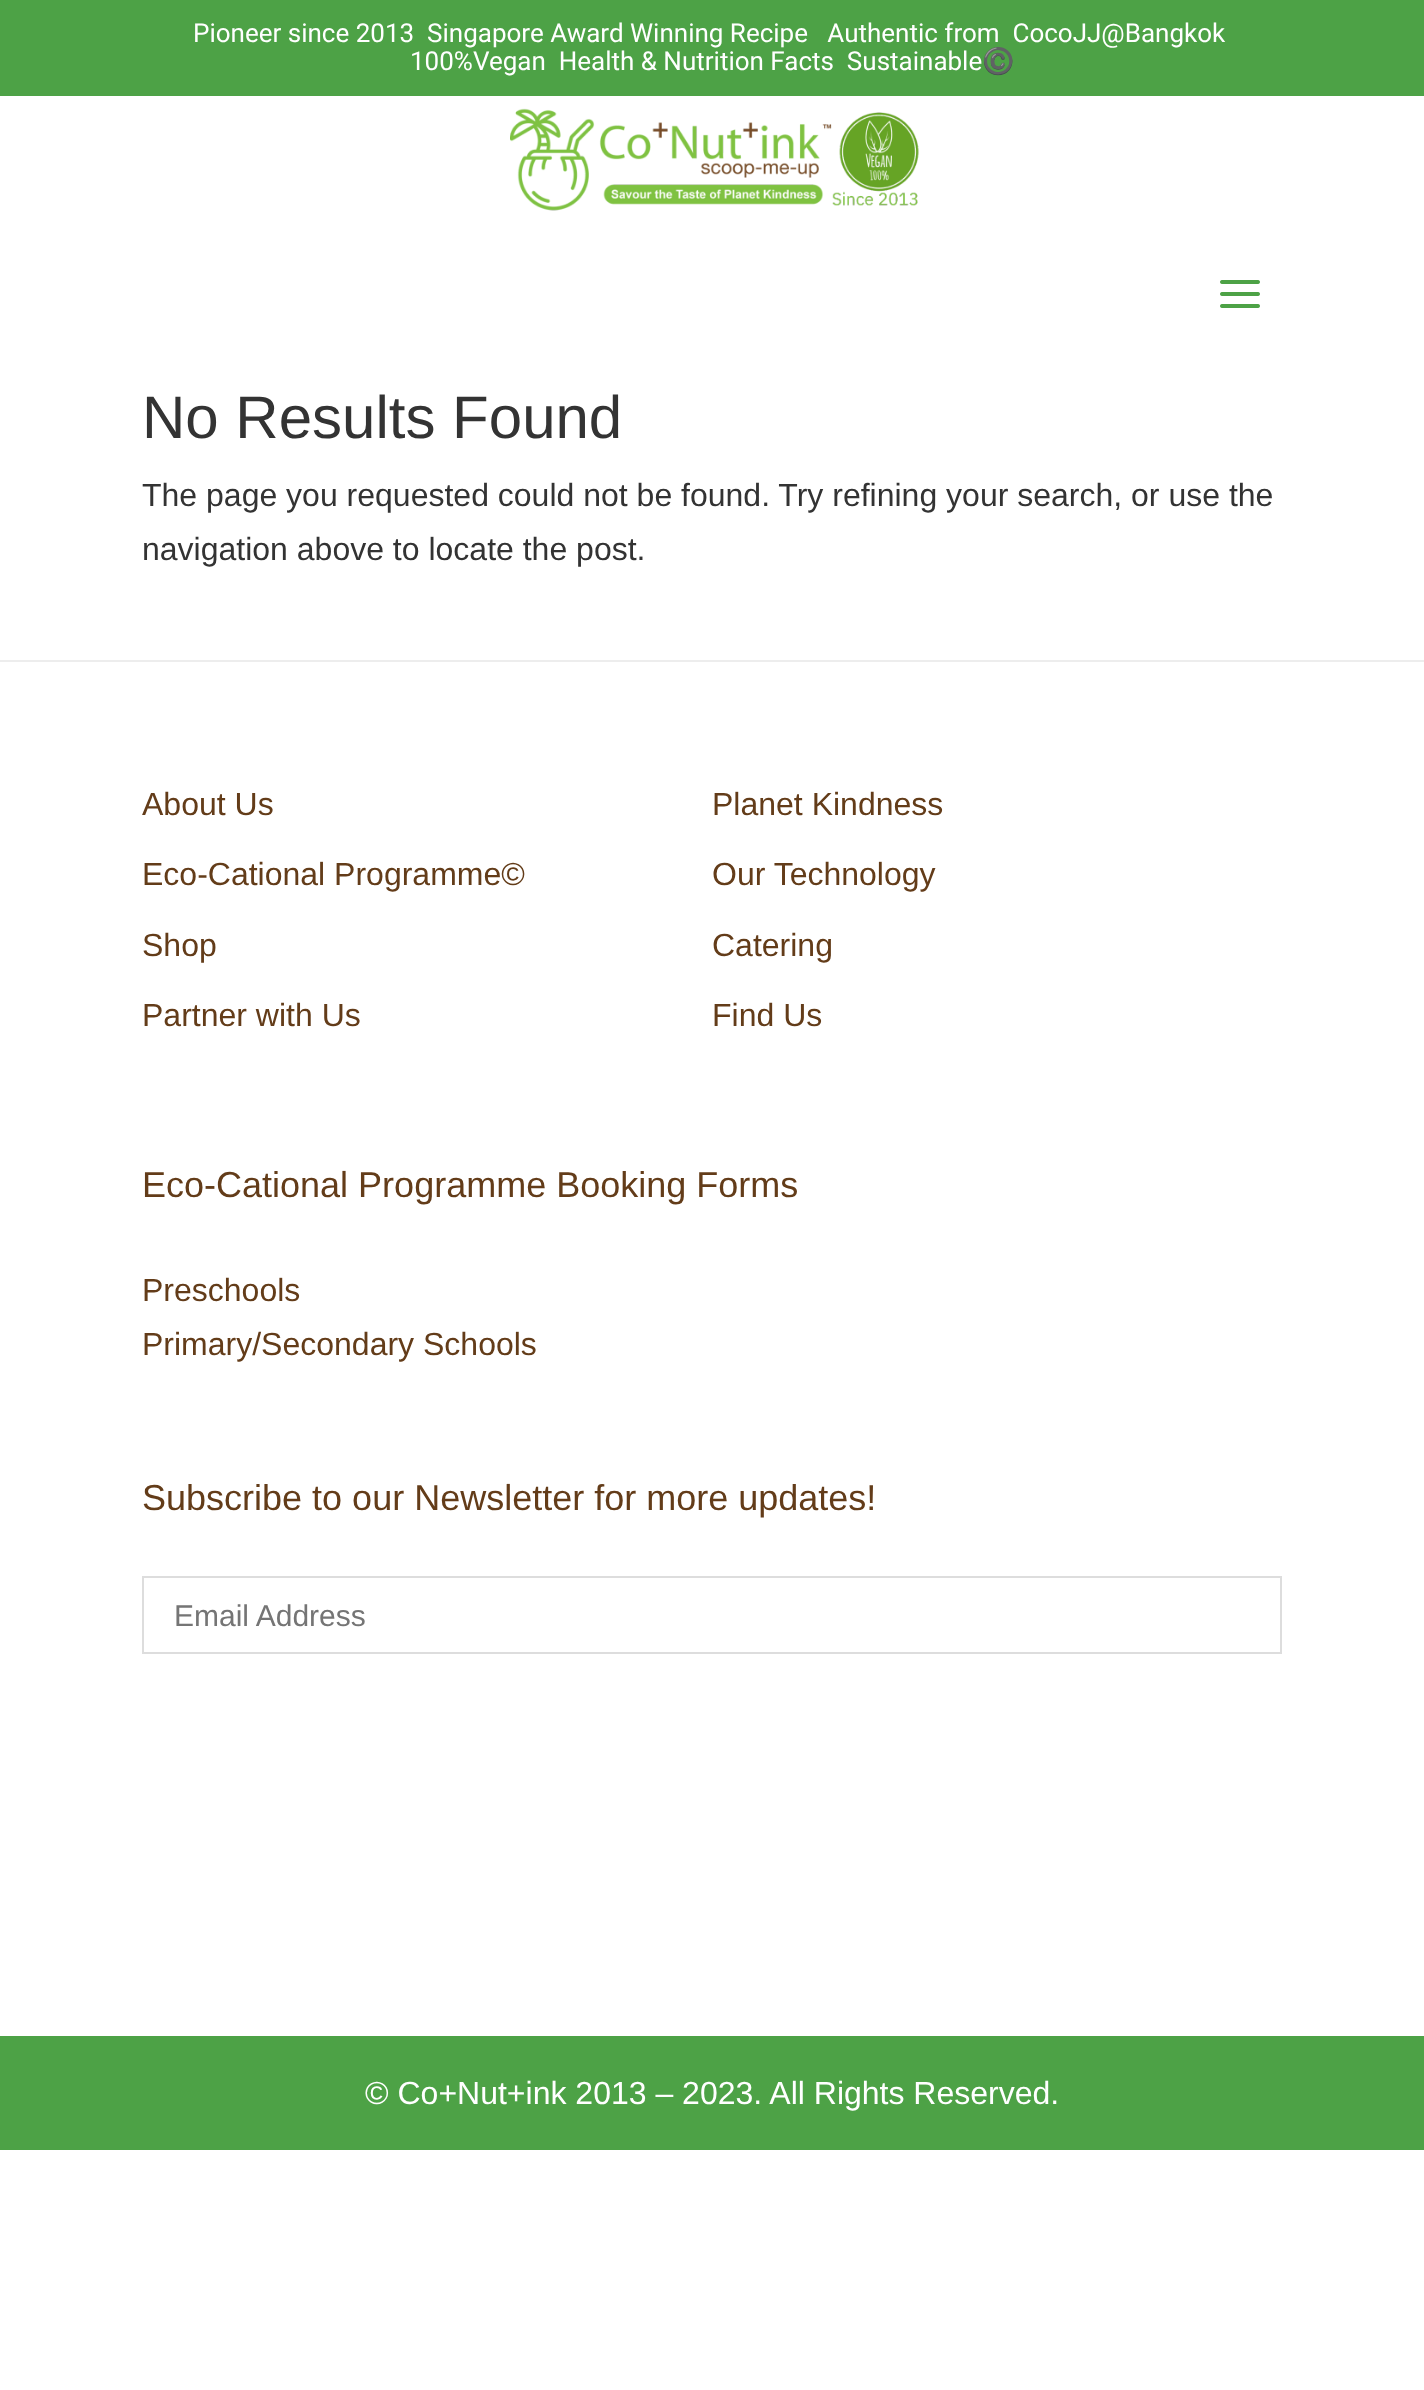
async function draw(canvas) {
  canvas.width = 1424
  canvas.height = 2390
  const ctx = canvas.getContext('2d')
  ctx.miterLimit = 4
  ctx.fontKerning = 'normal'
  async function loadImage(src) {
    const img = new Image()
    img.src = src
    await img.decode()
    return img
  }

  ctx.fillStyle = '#fff'
  ctx.fillRect(0, 0, 1424, 2390)
  ctx.fillStyle = '#4da246'
  ctx.fillRect(0, 0, 1424, 96)
  ctx.font = '26px Roboto'
  ctx.fillStyle = '#fff'
  ctx.fillText('Pioneer since 2013  Singapore Award Winning Recipe   Authentic from  CocoJJ@Bangkok', 193, 42)
  ctx.fillText('100%Vegan  Health & Nutrition Facts  Sustainable', 410, 70)
  ctx.font = '26px Noto Color Emoji'
  ctx.fillText('©️', 982, 70)
  ctx.drawImage(await loadImage('image0.png'), 510, 108, 409, 103)
  ctx.drawImage(await loadImage('image1.png'), 1220, 280, 40, 28)
  ctx.font = '60px Liberation Sans'
  ctx.fillStyle = '#333'
  ctx.fillText('No Results Found', 142, 438)
  ctx.font = '32px Liberation Sans'
  ctx.fillText('The page you requested could not be found. Try refining your search, or use the', 142, 506)
  ctx.fillText('navigation above to locate the post.', 142, 560)
  ctx.fillStyle = '#ededed'
  ctx.fillRect(0, 660, 1424, 2)
  ctx.fillStyle = '#633c19'
  ctx.fillText('About Us', 142, 815)
  ctx.fillText('Planet Kindness', 712, 815)
  ctx.fillText('Eco-Cational Programme©', 142, 885)
  ctx.fillText('Our Technology', 712, 885)
  ctx.fillText('Shop', 142, 956)
  ctx.fillText('Catering', 712, 956)
  ctx.fillText('Partner with Us', 142, 1026)
  ctx.fillText('Find Us', 712, 1026)
  ctx.font = '36px Liberation Sans'
  ctx.fillText('Eco-Cational Programme Booking Forms', 142, 1197)
  ctx.font = '32px Liberation Sans'
  ctx.fillText('Preschools', 142, 1301)
  ctx.fillText('Primary/Secondary Schools', 142, 1355)
  ctx.font = '36px Liberation Sans'
  ctx.fillText('Subscribe to our Newsletter for more updates!', 142, 1510)
  ctx.fillStyle = '#ddd'
  ctx.fillRect(142, 1576, 1140, 2)
  ctx.fillRect(1280, 1576, 2, 78)
  ctx.fillRect(142, 1652, 1140, 2)
  ctx.fillRect(142, 1576, 2, 78)
  ctx.font = '30px Liberation Sans'
  ctx.fillStyle = '#757575'
  ctx.fillText('Email Address', 174, 1626)
  ctx.fillStyle = '#4da246'
  ctx.fillRect(0, 2036, 1424, 114)
  ctx.font = '32px Liberation Sans'
  ctx.fillStyle = '#fff'
  ctx.fillText('© Co+Nut+ink 2013 – 2023. All Rights Reserved.', 365, 2104)
}

draw(document.querySelector('canvas'))
